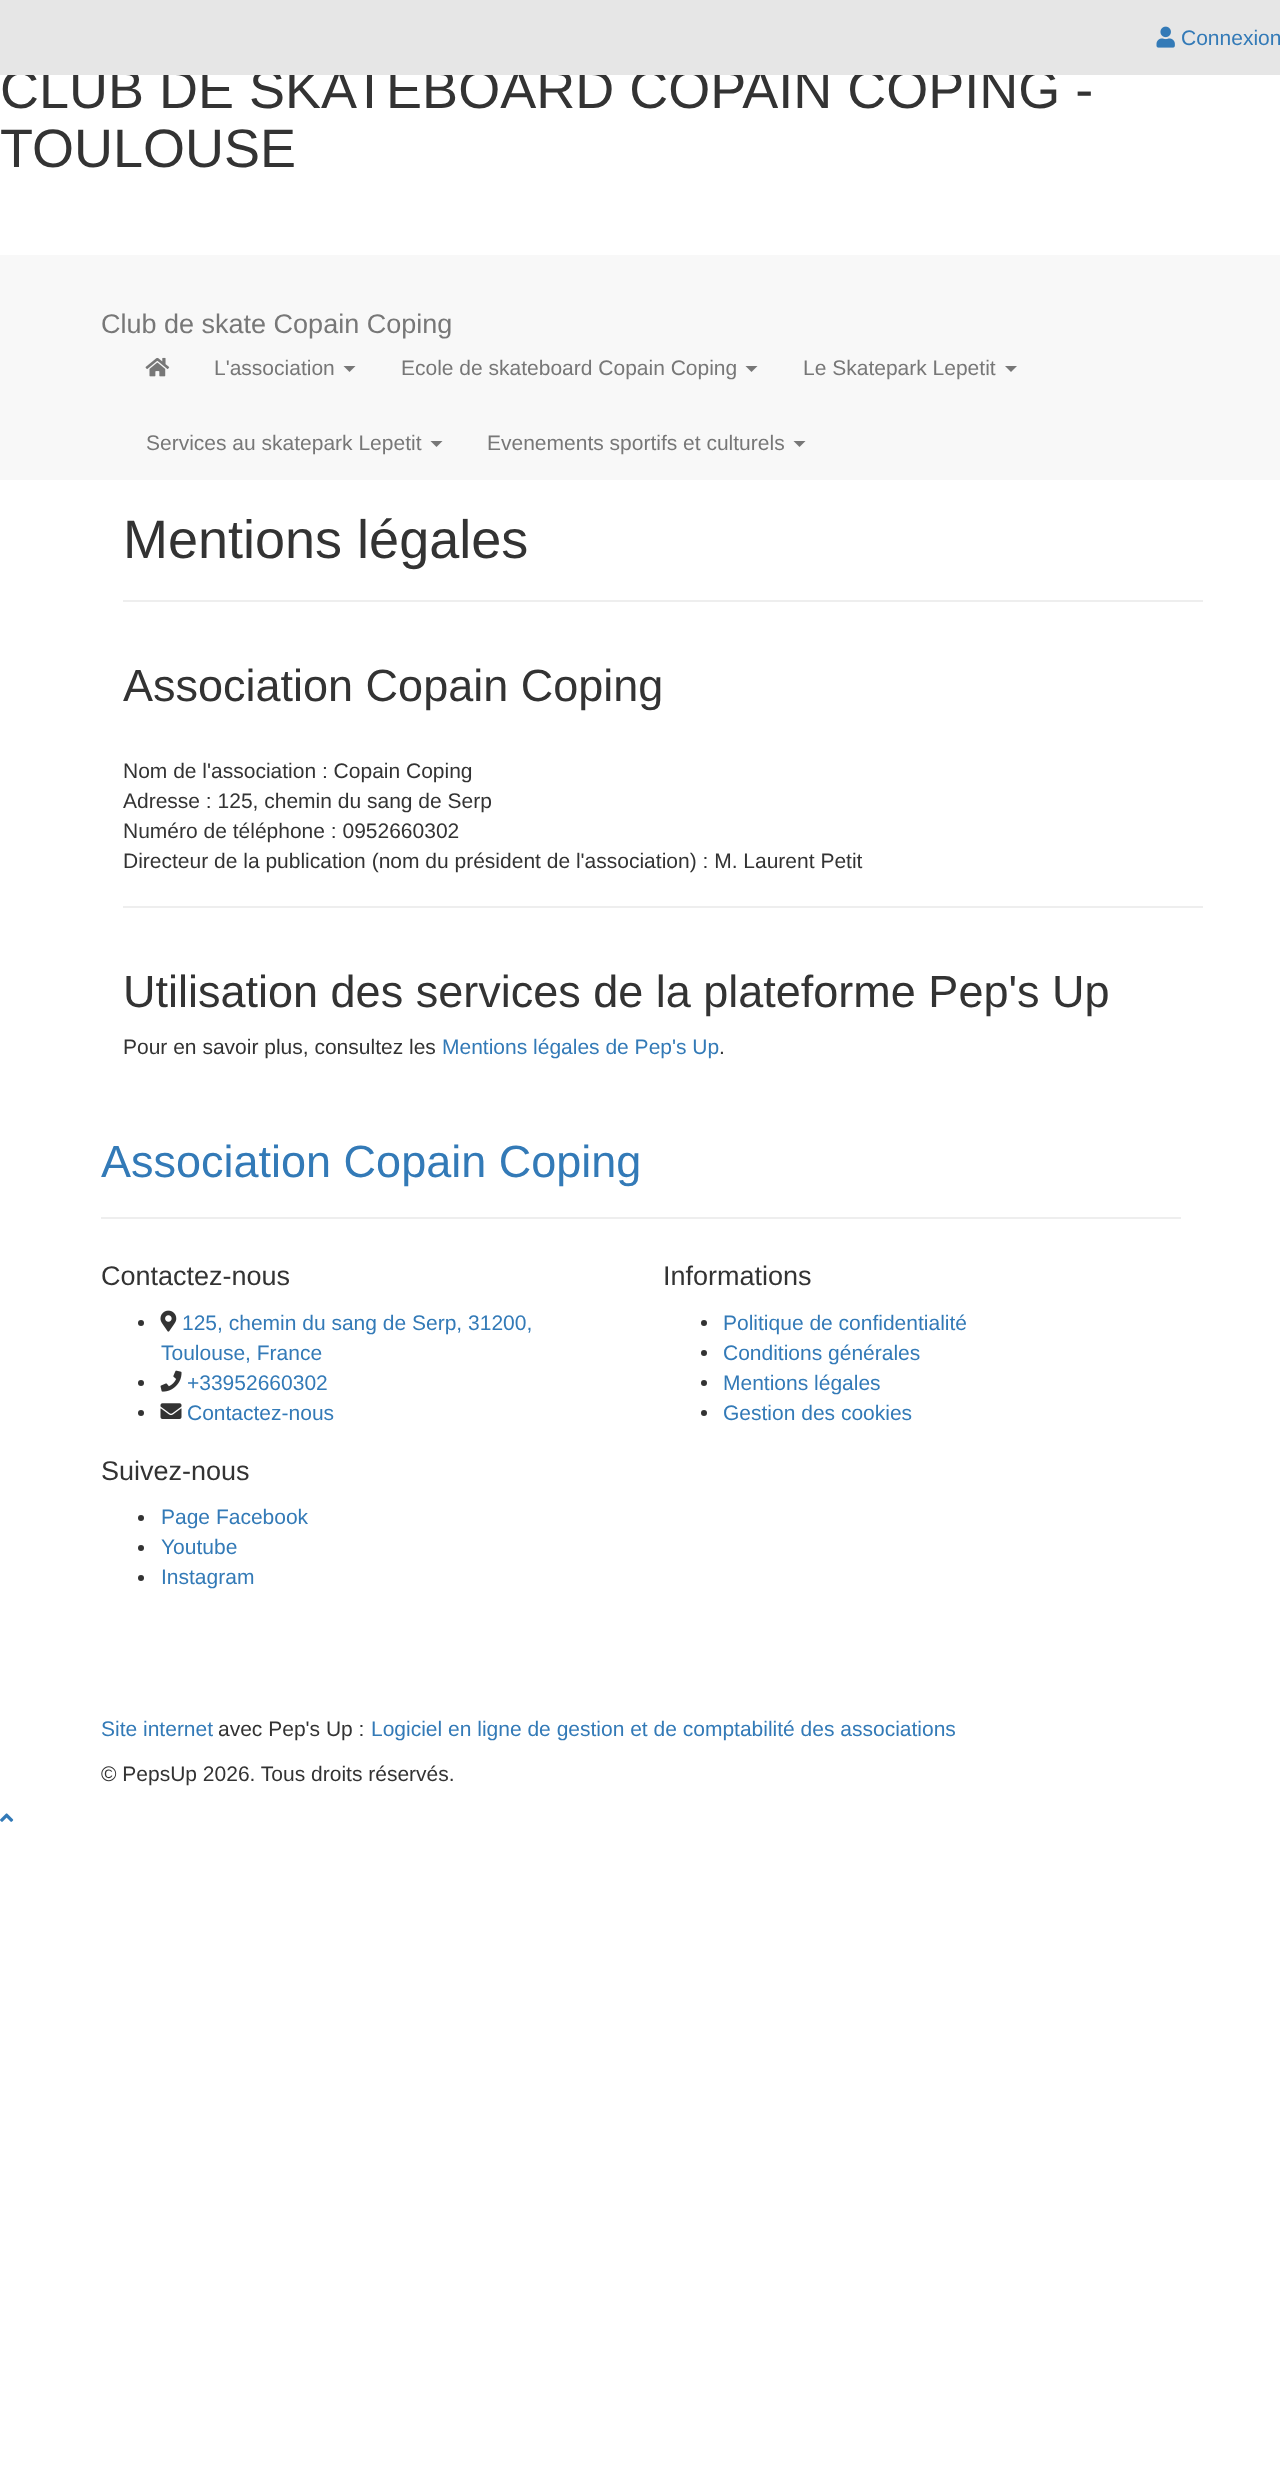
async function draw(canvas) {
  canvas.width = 1280
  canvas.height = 2467
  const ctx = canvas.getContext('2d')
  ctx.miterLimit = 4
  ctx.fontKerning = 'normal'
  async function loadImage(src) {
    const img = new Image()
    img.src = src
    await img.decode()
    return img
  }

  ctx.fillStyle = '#fff'
  ctx.fillRect(0, 0, 1280, 2467)
  ctx.font = '54px Liberation Sans'
  ctx.fillStyle = '#333'
  ctx.fillText('CLUB DE SKATEBOARD COPAIN COPING -', 0, 108)
  ctx.fillStyle = '#e6e6e6'
  ctx.fillRect(0, 0, 1280, 75)
  ctx.drawImage(await loadImage('image0.png'), 1156, 26, 19, 22)
  ctx.font = '21px Liberation Sans'
  ctx.fillStyle = '#337ab7'
  ctx.fillText('Connexion', 1181, 45)
  ctx.font = '54px Liberation Sans'
  ctx.fillStyle = '#333'
  ctx.fillText('TOULOUSE', 0, 167)
  ctx.fillStyle = '#f8f8f8'
  ctx.fillRect(0, 255, 1280, 225)
  ctx.font = '27px Liberation Sans'
  ctx.fillStyle = '#777'
  ctx.fillText('Club de skate Copain Coping', 101, 333)
  ctx.drawImage(await loadImage('image1.png'), 145, 357, 25, 20)
  ctx.font = '21px Liberation Sans'
  ctx.fillText('L\'association', 214, 375)
  ctx.beginPath()
  ctx.moveTo(343.5, 366)
  ctx.lineTo(355.5, 366)
  ctx.lineTo(349.5, 372)
  ctx.closePath()
  ctx.fill()
  ctx.fillText('Ecole de skateboard Copain Coping', 401, 375)
  ctx.beginPath()
  ctx.moveTo(745.5, 366)
  ctx.lineTo(757.5, 366)
  ctx.lineTo(751.5, 372)
  ctx.closePath()
  ctx.fill()
  ctx.fillText('Le Skatepark Lepetit', 803, 375)
  ctx.beginPath()
  ctx.moveTo(1005, 366)
  ctx.lineTo(1017, 366)
  ctx.lineTo(1011, 372)
  ctx.closePath()
  ctx.fill()
  ctx.fillText('Services au skatepark Lepetit', 146, 450)
  ctx.beginPath()
  ctx.moveTo(430.5, 441)
  ctx.lineTo(442.5, 441)
  ctx.lineTo(436.5, 447)
  ctx.closePath()
  ctx.fill()
  ctx.fillText('Evenements sportifs et culturels', 487, 450)
  ctx.beginPath()
  ctx.moveTo(793.5, 441)
  ctx.lineTo(805.5, 441)
  ctx.lineTo(799.5, 447)
  ctx.closePath()
  ctx.fill()
  ctx.font = '54px Liberation Sans'
  ctx.fillStyle = '#333'
  ctx.fillText('Mentions légales', 123, 558)
  ctx.fillStyle = '#eee'
  ctx.fillRect(123, 600, 1080, 2)
  ctx.font = '45px Liberation Sans'
  ctx.fillStyle = '#333'
  ctx.fillText('Association Copain Coping', 123, 701)
  ctx.font = '21px Liberation Sans'
  ctx.fillText('Nom de l\'association : Copain Coping', 123, 778)
  ctx.fillText('Adresse : 125, chemin du sang de Serp', 123, 808)
  ctx.fillText('Numéro de téléphone : 0952660302', 123, 838)
  ctx.fillText('Directeur de la publication (nom du président de l\'association) : M. Laurent Petit', 123, 868)
  ctx.fillStyle = '#eee'
  ctx.fillRect(123, 906, 1080, 2)
  ctx.font = '45px Liberation Sans'
  ctx.fillStyle = '#333'
  ctx.fillText('Utilisation des services de la plateforme Pep\'s Up', 123, 1007)
  ctx.font = '21px Liberation Sans'
  ctx.fillText('Pour en savoir plus, consultez les', 123, 1054)
  ctx.fillStyle = '#337ab7'
  ctx.fillText('Mentions légales de Pep\'s Up', 442, 1054)
  ctx.fillStyle = '#333'
  ctx.fillText('.', 719, 1054)
  ctx.font = '45px Liberation Sans'
  ctx.fillStyle = '#337ab7'
  ctx.fillText('Association Copain Coping', 101, 1177)
  ctx.fillStyle = '#eee'
  ctx.fillRect(101, 1217, 1080, 2)
  ctx.font = '27px Liberation Sans'
  ctx.fillStyle = '#333'
  ctx.fillText('Contactez-nous', 101, 1285)
  ctx.beginPath()
  ctx.arc(141, 1323, 3, 0, 2 * Math.PI)
  ctx.fill()
  ctx.drawImage(await loadImage('image2.png'), 160, 1310, 17, 22)
  ctx.font = '21px Liberation Sans'
  ctx.fillStyle = '#337ab7'
  ctx.fillText('125, chemin du sang de Serp, 31200,', 182, 1330)
  ctx.fillText('Toulouse, France', 161, 1360)
  ctx.fillStyle = '#333'
  ctx.beginPath()
  ctx.arc(141, 1383, 3, 0, 2 * Math.PI)
  ctx.fill()
  ctx.drawImage(await loadImage('image3.png'), 160, 1370, 22, 22)
  ctx.fillStyle = '#337ab7'
  ctx.fillText('+33952660302', 187, 1390)
  ctx.fillStyle = '#333'
  ctx.beginPath()
  ctx.arc(141, 1413, 3, 0, 2 * Math.PI)
  ctx.fill()
  ctx.drawImage(await loadImage('image4.png'), 160, 1403, 22, 16)
  ctx.fillStyle = '#337ab7'
  ctx.fillText('Contactez-nous', 187, 1420)
  ctx.font = '27px Liberation Sans'
  ctx.fillStyle = '#333'
  ctx.fillText('Informations', 663, 1285)
  ctx.beginPath()
  ctx.arc(704, 1323, 3, 0, 2 * Math.PI)
  ctx.fill()
  ctx.font = '21px Liberation Sans'
  ctx.fillStyle = '#337ab7'
  ctx.fillText('Politique de confidentialité', 723, 1330)
  ctx.fillStyle = '#333'
  ctx.beginPath()
  ctx.arc(704, 1353, 3, 0, 2 * Math.PI)
  ctx.fill()
  ctx.fillStyle = '#337ab7'
  ctx.fillText('Conditions générales', 723, 1360)
  ctx.fillStyle = '#333'
  ctx.beginPath()
  ctx.arc(704, 1383, 3, 0, 2 * Math.PI)
  ctx.fill()
  ctx.fillStyle = '#337ab7'
  ctx.fillText('Mentions légales', 723, 1390)
  ctx.fillStyle = '#333'
  ctx.beginPath()
  ctx.arc(704, 1413, 3, 0, 2 * Math.PI)
  ctx.fill()
  ctx.fillStyle = '#337ab7'
  ctx.fillText('Gestion des cookies', 723, 1420)
  ctx.font = '27px Liberation Sans'
  ctx.fillStyle = '#333'
  ctx.fillText('Suivez-nous', 101, 1480)
  ctx.beginPath()
  ctx.arc(141, 1518, 3, 0, 2 * Math.PI)
  ctx.fill()
  ctx.font = '21px Liberation Sans'
  ctx.fillStyle = '#337ab7'
  ctx.fillText('Page Facebook', 161, 1524)
  ctx.fillStyle = '#333'
  ctx.beginPath()
  ctx.arc(141, 1548, 3, 0, 2 * Math.PI)
  ctx.fill()
  ctx.fillStyle = '#337ab7'
  ctx.fillText('Youtube', 161, 1554)
  ctx.fillStyle = '#333'
  ctx.beginPath()
  ctx.arc(141, 1578, 3, 0, 2 * Math.PI)
  ctx.fill()
  ctx.fillStyle = '#337ab7'
  ctx.fillText('Instagram', 161, 1584)
  ctx.fillText('Site internet', 101, 1736)
  ctx.fillStyle = '#333'
  ctx.fillText('avec Pep\'s Up :', 218, 1736)
  ctx.fillStyle = '#337ab7'
  ctx.fillText('Logiciel en ligne de gestion et de comptabilité des associations', 371, 1736)
  ctx.fillStyle = '#333'
  ctx.fillText('© PepsUp 2026. Tous droits réservés.', 101, 1781)
  ctx.drawImage(await loadImage('image5.png'), 0, 1813, 14, 9)
}

draw(document.querySelector('canvas'))
